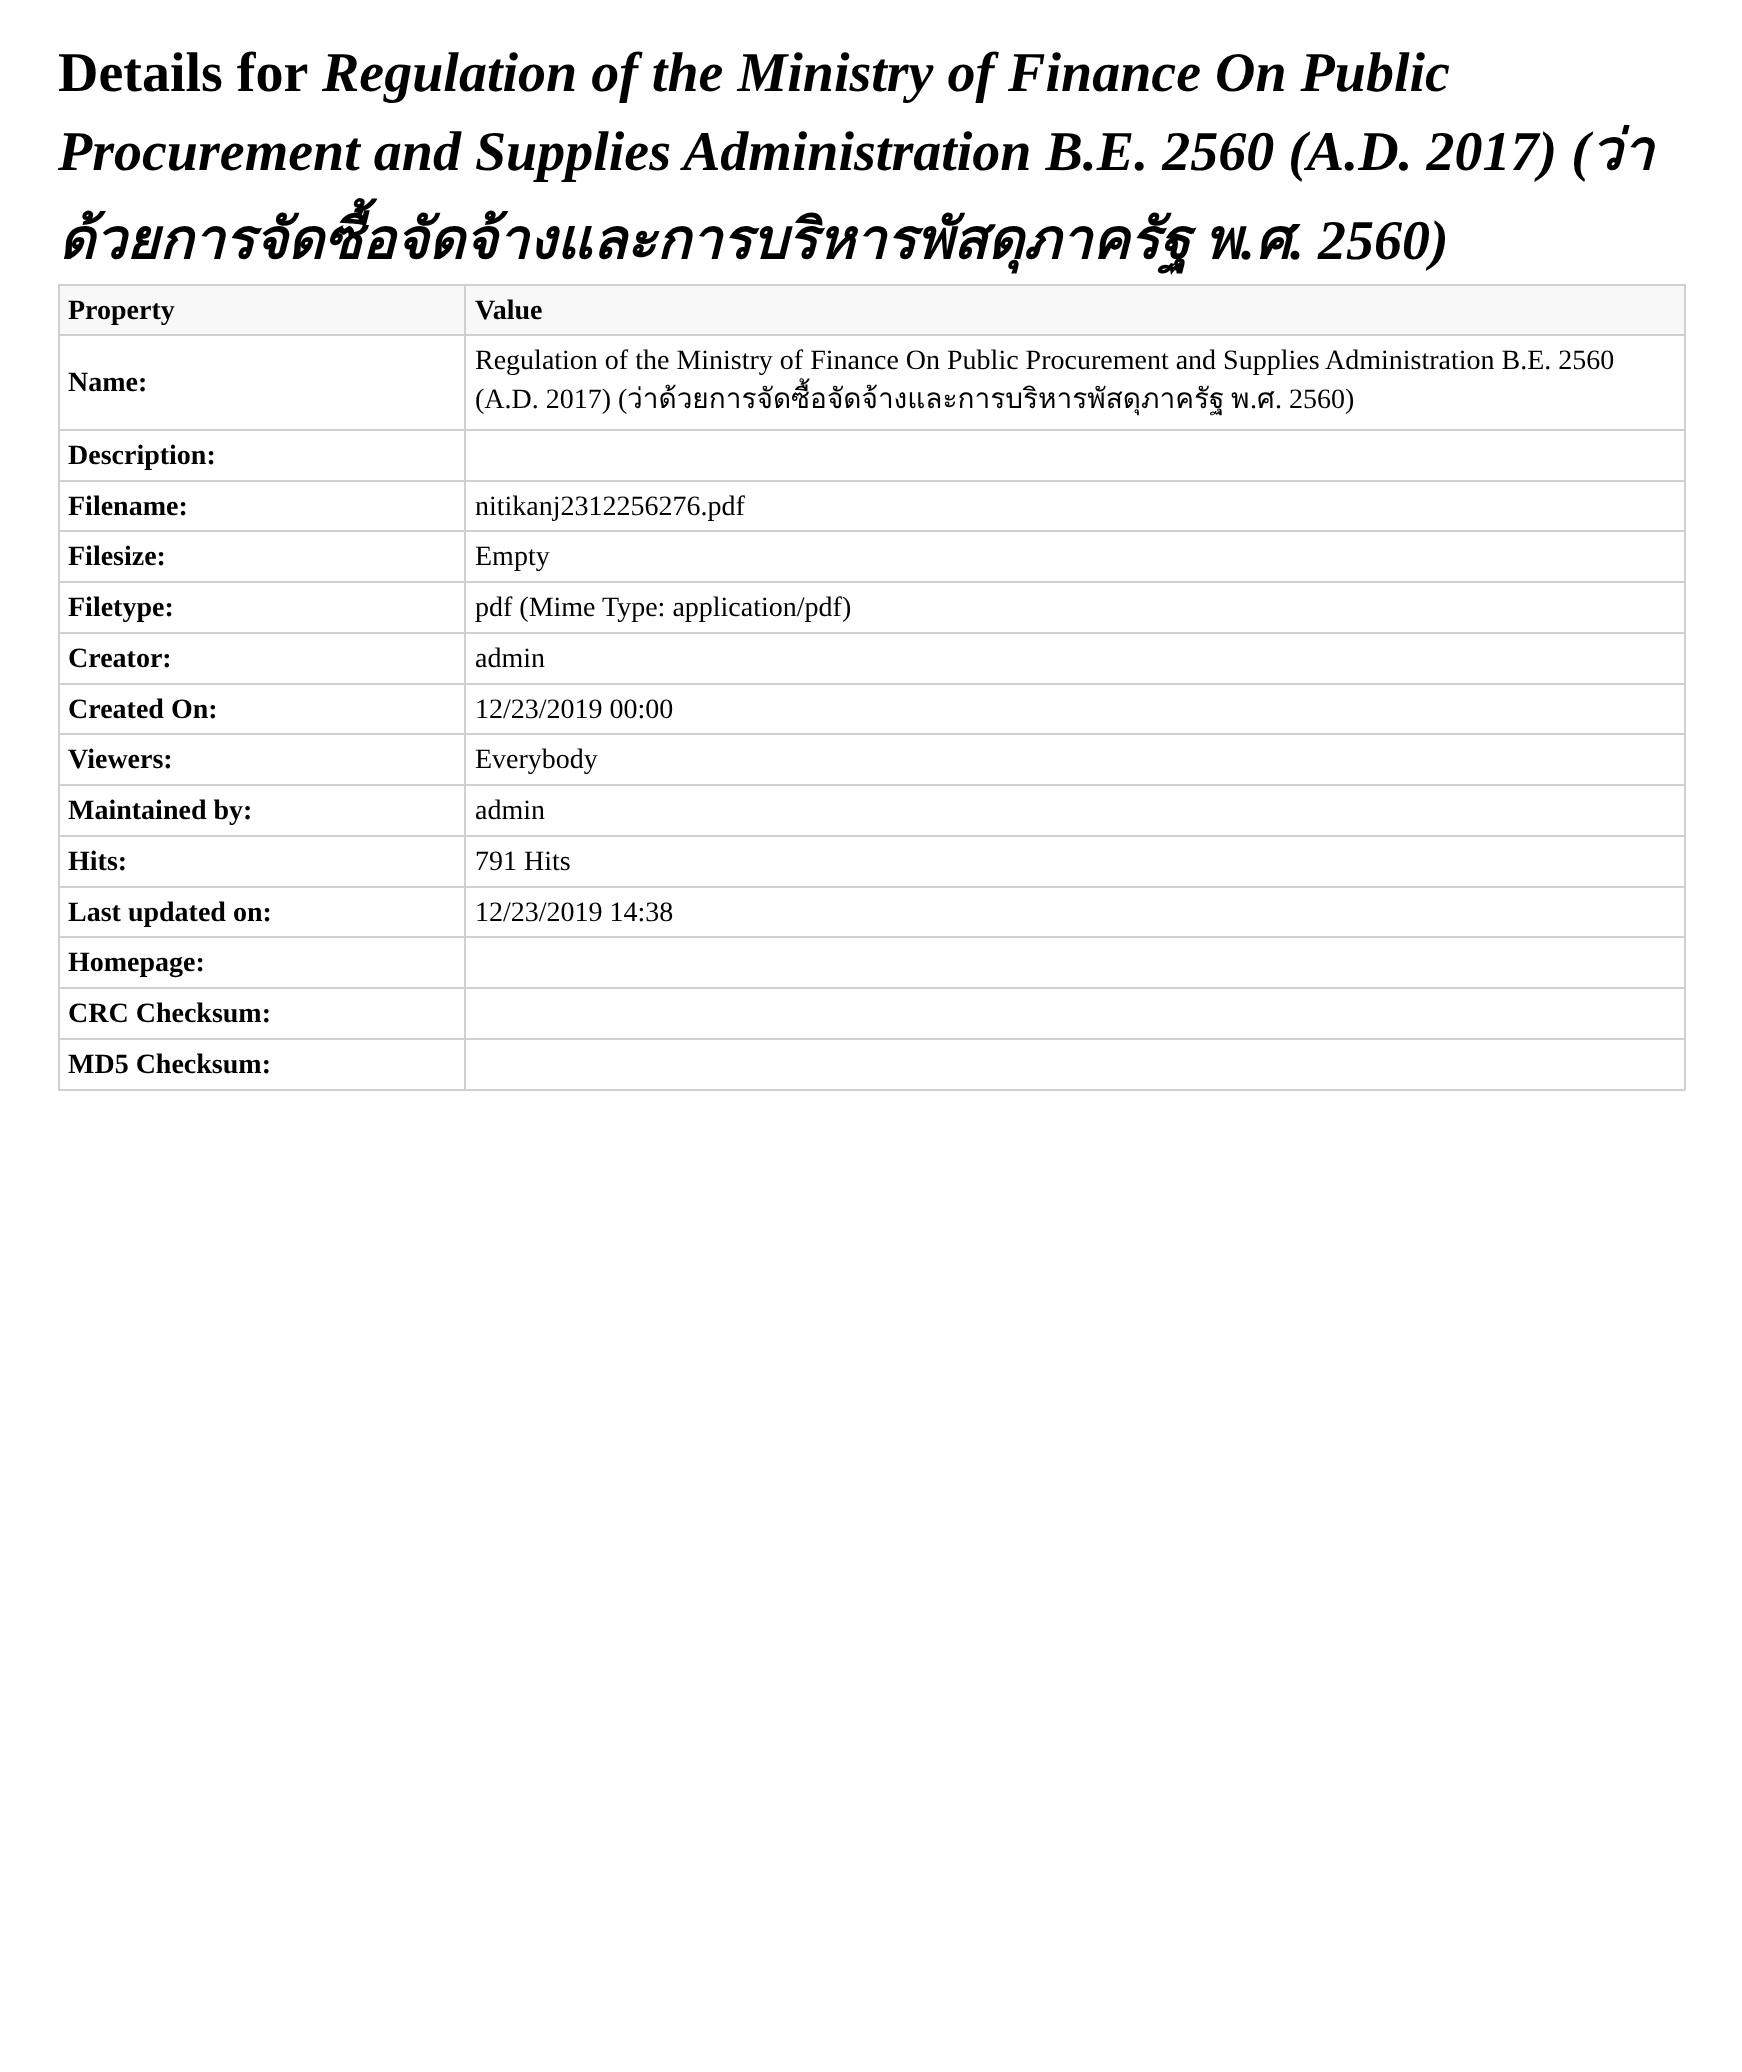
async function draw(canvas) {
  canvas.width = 1742
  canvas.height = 2072
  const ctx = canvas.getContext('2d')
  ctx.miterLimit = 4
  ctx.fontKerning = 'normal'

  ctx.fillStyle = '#fff'
  ctx.fillRect(0, 0, 1742, 2072)
  ctx.font = 'bold 56px Liberation Serif'
  ctx.fillStyle = '#000'
  ctx.fillText('Details for', 58, 91)
  ctx.font = 'italic bold 56px Liberation Serif'
  ctx.fillText('Regulation of the Ministry of Finance On Public', 322, 91)
  ctx.fillText('Procurement and Supplies Administration B.E. 2560 (A.D. 2017) (', 58, 170)
  ctx.font = 'italic bold 56px Loma'
  ctx.fillText('ว่า', 1590, 170)
  ctx.fillText('ด้วยการจัดซื้อจัดจ้างและการบริหารพัสดุภาครัฐ', 58, 259)
  ctx.fillText('พ', 1204, 259)
  ctx.font = 'italic bold 56px Liberation Serif'
  ctx.fillText('.', 1241, 259)
  ctx.font = 'italic bold 56px Loma'
  ctx.fillText('ศ', 1255, 259)
  ctx.font = 'italic bold 56px Liberation Serif'
  ctx.fillText('. 2560)', 1290, 259)
  ctx.fillStyle = '#d0d0d0'
  ctx.fillRect(58, 284, 1627, 2)
  ctx.fillRect(58, 284, 2, 806)
  ctx.fillStyle = '#f8f8f8'
  ctx.fillRect(60, 286, 1624, 48)
  ctx.fillStyle = '#d0d0d0'
  ctx.fillRect(1684, 284, 2, 806)
  ctx.fillRect(464, 1089, 1221, 2)
  ctx.fillRect(464, 1038, 2, 52)
  ctx.fillRect(464, 1038, 1221, 2)
  ctx.fillRect(464, 987, 2, 53)
  ctx.fillRect(464, 987, 1221, 2)
  ctx.fillRect(464, 936, 2, 53)
  ctx.fillRect(464, 936, 1221, 2)
  ctx.fillRect(464, 886, 2, 52)
  ctx.fillRect(464, 886, 1221, 2)
  ctx.fillRect(464, 835, 2, 52)
  ctx.fillRect(464, 835, 1221, 2)
  ctx.fillRect(464, 784, 2, 53)
  ctx.fillRect(464, 784, 1221, 2)
  ctx.fillRect(464, 733, 2, 53)
  ctx.fillRect(464, 733, 1221, 2)
  ctx.fillRect(464, 683, 2, 52)
  ctx.fillRect(464, 683, 1221, 2)
  ctx.fillRect(464, 632, 2, 52)
  ctx.fillRect(464, 632, 1221, 2)
  ctx.fillRect(464, 581, 2, 53)
  ctx.fillRect(464, 581, 1221, 2)
  ctx.fillRect(464, 530, 2, 53)
  ctx.fillRect(464, 530, 1221, 2)
  ctx.fillRect(464, 480, 2, 52)
  ctx.fillRect(464, 480, 1221, 2)
  ctx.fillRect(464, 429, 2, 52)
  ctx.fillRect(464, 429, 1221, 2)
  ctx.fillRect(464, 334, 2, 97)
  ctx.fillRect(464, 334, 1221, 2)
  ctx.fillRect(464, 284, 2, 52)
  ctx.fillRect(58, 334, 408, 2)
  ctx.font = 'bold 28px Liberation Serif'
  ctx.fillStyle = '#000'
  ctx.fillText('Property', 68, 319)
  ctx.fillText('Value', 475, 319)
  ctx.fillStyle = '#d0d0d0'
  ctx.fillRect(58, 429, 408, 2)
  ctx.fillStyle = '#000'
  ctx.fillText('Name:', 68, 391)
  ctx.font = '28px Liberation Serif'
  ctx.fillText('Regulation of the Ministry of Finance On Public Procurement and Supplies Administration B.E. 2560', 475, 369)
  ctx.fillText('(A.D. 2017) (', 475, 408)
  ctx.font = '28px Loma'
  ctx.fillText('ว่าด้วยการจัดซื้อจัดจ้างและการบริหารพัสดุภาครัฐ', 627, 408)
  ctx.fillText('พ', 1231, 408)
  ctx.font = '28px Liberation Serif'
  ctx.fillText('.', 1250, 408)
  ctx.font = '28px Loma'
  ctx.fillText('ศ', 1257, 408)
  ctx.font = '28px Liberation Serif'
  ctx.fillText('. 2560)', 1275, 408)
  ctx.fillStyle = '#d0d0d0'
  ctx.fillRect(58, 480, 408, 2)
  ctx.font = 'bold 28px Liberation Serif'
  ctx.fillStyle = '#000'
  ctx.fillText('Description:', 68, 464)
  ctx.fillStyle = '#d0d0d0'
  ctx.fillRect(58, 530, 408, 2)
  ctx.fillStyle = '#000'
  ctx.fillText('Filename:', 68, 515)
  ctx.font = '28px Liberation Serif'
  ctx.fillText('nitikanj2312256276.pdf', 475, 515)
  ctx.fillStyle = '#d0d0d0'
  ctx.fillRect(58, 581, 408, 2)
  ctx.font = 'bold 28px Liberation Serif'
  ctx.fillStyle = '#000'
  ctx.fillText('Filesize:', 68, 565)
  ctx.font = '28px Liberation Serif'
  ctx.fillText('Empty', 475, 565)
  ctx.fillStyle = '#d0d0d0'
  ctx.fillRect(58, 632, 408, 2)
  ctx.font = 'bold 28px Liberation Serif'
  ctx.fillStyle = '#000'
  ctx.fillText('Filetype:', 68, 616)
  ctx.font = '28px Liberation Serif'
  ctx.fillText('pdf (Mime Type: application/pdf)', 475, 616)
  ctx.fillStyle = '#d0d0d0'
  ctx.fillRect(58, 683, 408, 2)
  ctx.font = 'bold 28px Liberation Serif'
  ctx.fillStyle = '#000'
  ctx.fillText('Creator:', 68, 667)
  ctx.font = '28px Liberation Serif'
  ctx.fillText('admin', 475, 667)
  ctx.fillStyle = '#d0d0d0'
  ctx.fillRect(58, 733, 408, 2)
  ctx.font = 'bold 28px Liberation Serif'
  ctx.fillStyle = '#000'
  ctx.fillText('Created On:', 68, 718)
  ctx.font = '28px Liberation Serif'
  ctx.fillText('12/23/2019 00:00', 475, 718)
  ctx.fillStyle = '#d0d0d0'
  ctx.fillRect(58, 784, 408, 2)
  ctx.font = 'bold 28px Liberation Serif'
  ctx.fillStyle = '#000'
  ctx.fillText('Viewers:', 68, 768)
  ctx.font = '28px Liberation Serif'
  ctx.fillText('Everybody', 475, 768)
  ctx.fillStyle = '#d0d0d0'
  ctx.fillRect(58, 835, 408, 2)
  ctx.font = 'bold 28px Liberation Serif'
  ctx.fillStyle = '#000'
  ctx.fillText('Maintained by:', 68, 819)
  ctx.font = '28px Liberation Serif'
  ctx.fillText('admin', 475, 819)
  ctx.fillStyle = '#d0d0d0'
  ctx.fillRect(58, 886, 408, 2)
  ctx.font = 'bold 28px Liberation Serif'
  ctx.fillStyle = '#000'
  ctx.fillText('Hits:', 68, 870)
  ctx.font = '28px Liberation Serif'
  ctx.fillText('791 Hits', 475, 870)
  ctx.fillStyle = '#d0d0d0'
  ctx.fillRect(58, 936, 408, 2)
  ctx.font = 'bold 28px Liberation Serif'
  ctx.fillStyle = '#000'
  ctx.fillText('Last updated on:', 68, 921)
  ctx.font = '28px Liberation Serif'
  ctx.fillText('12/23/2019 14:38', 475, 921)
  ctx.fillStyle = '#d0d0d0'
  ctx.fillRect(58, 987, 408, 2)
  ctx.font = 'bold 28px Liberation Serif'
  ctx.fillStyle = '#000'
  ctx.fillText('Homepage:', 68, 971)
  ctx.fillStyle = '#d0d0d0'
  ctx.fillRect(58, 1038, 408, 2)
  ctx.fillStyle = '#000'
  ctx.fillText('CRC Checksum:', 68, 1022)
  ctx.fillStyle = '#d0d0d0'
  ctx.fillRect(58, 1089, 408, 2)
  ctx.fillStyle = '#000'
  ctx.fillText('MD5 Checksum:', 68, 1073)
}

draw(document.querySelector('canvas'))
